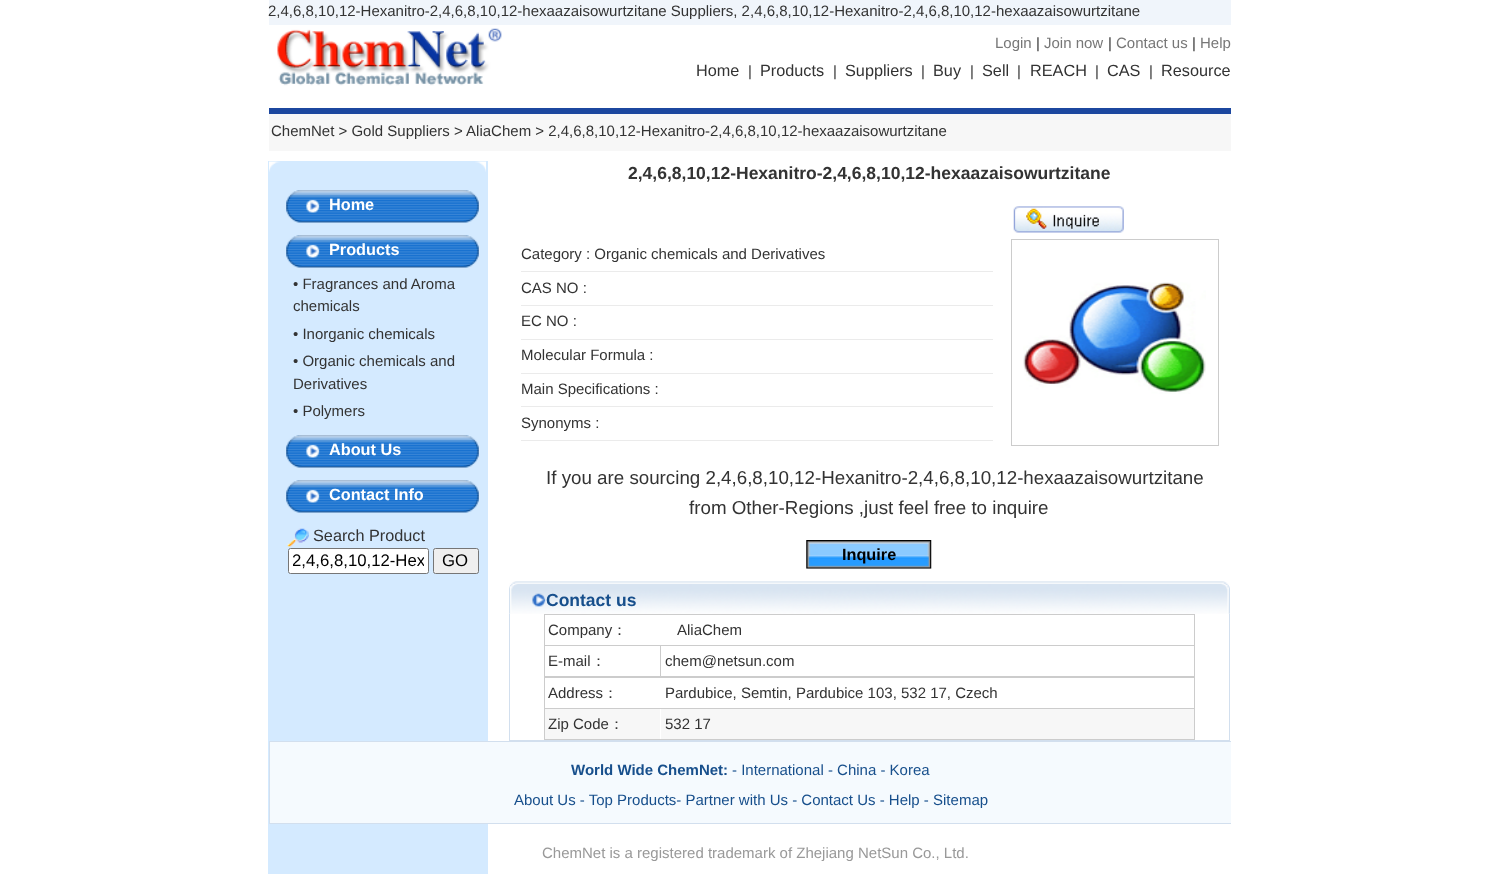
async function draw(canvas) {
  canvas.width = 1492
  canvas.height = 886
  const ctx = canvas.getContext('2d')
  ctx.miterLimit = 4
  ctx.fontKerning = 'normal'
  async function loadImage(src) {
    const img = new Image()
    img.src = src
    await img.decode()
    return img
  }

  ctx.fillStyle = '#fff'
  ctx.fillRect(0, 0, 1492, 886)
  ctx.fillStyle = '#f0f5fb'
  ctx.fillRect(269, 0, 962, 25)
  ctx.font = '15px Liberation Sans'
  ctx.fillStyle = '#333'
  ctx.fillText('2,4,6,8,10,12-Hexanitro-2,4,6,8,10,12-hexaazaisowurtzitane Suppliers, 2,4,6,8,10,12-Hexanitro-2,4,6,8,10,12-hexaazaisowurtzitane', 268, 16)
  ctx.drawImage(await loadImage('image0.png'), 277, 28, 225, 58)
  ctx.fillStyle = '#777'
  ctx.fillText('Login', 995, 48)
  ctx.fillStyle = '#333'
  ctx.fillText('|', 1036, 48)
  ctx.fillStyle = '#777'
  ctx.fillText('Join now', 1044, 48)
  ctx.fillStyle = '#333'
  ctx.fillText('|', 1108, 48)
  ctx.fillStyle = '#777'
  ctx.fillText('Contact us', 1116, 48)
  ctx.fillStyle = '#333'
  ctx.fillText('|', 1192, 48)
  ctx.fillStyle = '#777'
  ctx.fillText('Help', 1200, 48)
  ctx.font = '16.25px Liberation Sans'
  ctx.fillStyle = '#333'
  ctx.fillText('Home', 696, 76)
  ctx.font = '15px Liberation Sans'
  ctx.fillText('|', 748, 76)
  ctx.font = '16.25px Liberation Sans'
  ctx.fillText('Products', 760, 76)
  ctx.font = '15px Liberation Sans'
  ctx.fillText('|', 833, 76)
  ctx.font = '16.25px Liberation Sans'
  ctx.fillText('Suppliers', 845, 76)
  ctx.font = '15px Liberation Sans'
  ctx.fillText('|', 921, 76)
  ctx.font = '16.25px Liberation Sans'
  ctx.fillText('Buy', 933, 76)
  ctx.font = '15px Liberation Sans'
  ctx.fillText('|', 970, 76)
  ctx.font = '16.25px Liberation Sans'
  ctx.fillText('Sell', 982, 76)
  ctx.font = '15px Liberation Sans'
  ctx.fillText('|', 1017, 76)
  ctx.font = '16.25px Liberation Sans'
  ctx.fillText('REACH', 1030, 76)
  ctx.font = '15px Liberation Sans'
  ctx.fillText('|', 1095, 76)
  ctx.font = '16.25px Liberation Sans'
  ctx.fillText('CAS', 1107, 76)
  ctx.font = '15px Liberation Sans'
  ctx.fillText('|', 1149, 76)
  ctx.font = '16.25px Liberation Sans'
  ctx.fillText('Resource', 1161, 76)
  ctx.fillStyle = '#1c479f'
  ctx.fillRect(269, 108, 962, 6)
  ctx.fillStyle = '#f7f7f7'
  ctx.fillRect(269, 114, 962, 37)
  ctx.font = '15px Liberation Sans'
  ctx.fillStyle = '#333'
  ctx.fillText('ChemNet > Gold Suppliers > AliaChem > 2,4,6,8,10,12-Hexanitro-2,4,6,8,10,12-hexaazaisowurtzitane', 271, 136)
  ctx.fillStyle = '#d4eaff'
  ctx.fillRect(268, 161, 220, 713)
  ctx.drawImage(await loadImage('image1.png'), 269, 161, 217, 11)
  ctx.drawImage(await loadImage('image2.png'), 286, 190, 193, 33)
  ctx.font = 'bold 16.25px Liberation Sans'
  ctx.fillStyle = '#fff'
  ctx.fillText('Home', 329, 210)
  ctx.drawImage(await loadImage('image2.png'), 286, 235, 193, 33)
  ctx.fillText('Products', 329, 255)
  ctx.font = '15px Liberation Sans'
  ctx.fillStyle = '#333'
  ctx.fillText('• Fragrances and Aroma', 293, 289)
  ctx.fillText('chemicals', 293, 311)
  ctx.fillText('• Inorganic chemicals', 293, 339)
  ctx.fillText('• Organic chemicals and', 293, 366)
  ctx.fillText('Derivatives', 293, 389)
  ctx.fillText('• Polymers', 293, 416)
  ctx.drawImage(await loadImage('image2.png'), 286, 435, 193, 33)
  ctx.font = 'bold 16.25px Liberation Sans'
  ctx.fillStyle = '#fff'
  ctx.fillText('About Us', 329, 455)
  ctx.drawImage(await loadImage('image2.png'), 286, 480, 193, 33)
  ctx.fillText('Contact Info', 329, 500)
  ctx.drawImage(await loadImage('image3.png'), 287, 528, 22, 19)
  ctx.font = '16.25px Liberation Sans'
  ctx.fillStyle = '#333'
  ctx.fillText('Search Product', 313, 541)
  ctx.fillStyle = '#fff'
  ctx.beginPath()
  ctx.roundRect(288.5, 548.5, 140, 25, 2)
  ctx.fill()
  ctx.strokeStyle = '#767676'
  ctx.stroke()
  ctx.save()
  ctx.beginPath()
  ctx.rect(293, 551, 131, 19)
  ctx.clip()
  ctx.font = '16.75px Liberation Sans'
  ctx.fillStyle = '#000'
  ctx.fillText('2,4,6,8,10,12-Hex', 292, 566)
  ctx.restore()
  ctx.fillStyle = '#efefef'
  ctx.beginPath()
  ctx.roundRect(433.5, 548.5, 45, 25, 2)
  ctx.fill()
  ctx.stroke()
  ctx.font = '16.75px Liberation Sans'
  ctx.fillStyle = '#000'
  ctx.fillText('GO', 442, 566)
  ctx.font = 'bold 17.5px Liberation Sans'
  ctx.fillStyle = '#333'
  ctx.fillText('2,4,6,8,10,12-Hexanitro-2,4,6,8,10,12-hexaazaisowurtzitane', 628, 179)
  ctx.drawImage(await loadImage('image4.png'), 1013, 206, 111, 27)
  ctx.fillStyle = '#ebebeb'
  ctx.fillRect(521, 271, 472, 1)
  ctx.font = '15px Liberation Sans'
  ctx.fillStyle = '#333'
  ctx.fillText('Category : Organic chemicals and Derivatives', 521, 259)
  ctx.fillStyle = '#ebebeb'
  ctx.fillRect(521, 305, 472, 1)
  ctx.fillStyle = '#333'
  ctx.fillText('CAS NO :', 521, 293)
  ctx.fillStyle = '#ebebeb'
  ctx.fillRect(521, 339, 472, 1)
  ctx.fillStyle = '#333'
  ctx.fillText('EC NO :', 521, 326)
  ctx.fillStyle = '#ebebeb'
  ctx.fillRect(521, 373, 472, 1)
  ctx.fillStyle = '#333'
  ctx.fillText('Molecular Formula :', 521, 360)
  ctx.fillStyle = '#ebebeb'
  ctx.fillRect(521, 406, 472, 1)
  ctx.fillStyle = '#333'
  ctx.fillText('Main Specifications :', 521, 394)
  ctx.fillStyle = '#ebebeb'
  ctx.fillRect(521, 440, 472, 1)
  ctx.fillStyle = '#333'
  ctx.fillText('Synonyms :', 521, 428)
  ctx.strokeStyle = '#ccc'
  ctx.strokeRect(1011.5, 239.5, 207, 206)
  ctx.drawImage(await loadImage('image5.png'), 1023, 282, 183, 112)
  ctx.font = '18.75px Liberation Sans'
  ctx.fillText('If you are sourcing 2,4,6,8,10,12-Hexanitro-2,4,6,8,10,12-hexaazaisowurtzitane', 546, 484)
  ctx.fillText('from Other-Regions ,just feel free to inquire', 689, 514)
  ctx.drawImage(await loadImage('image6.png'), 806, 540, 126, 29)
  ctx.font = 'bold 16.25px Liberation Sans'
  ctx.fillStyle = '#000'
  ctx.fillText('Inquire', 842, 560)
  ctx.drawImage(await loadImage('image7.png'), 509, 581, 721, 33)
  ctx.font = 'bold 17.5px Liberation Sans'
  ctx.fillStyle = '#174f8c'
  ctx.fillText('Contact us', 546, 606)
  ctx.fillStyle = '#d2dfee'
  ctx.fillRect(1229, 614, 1, 127)
  ctx.fillRect(509, 740, 721, 1)
  ctx.fillRect(509, 614, 1, 127)
  ctx.fillStyle = '#ccc'
  ctx.fillRect(544, 614, 651, 126)
  ctx.fillStyle = '#fff'
  ctx.fillRect(545, 615, 649, 30)
  ctx.font = '15px Liberation Sans'
  ctx.fillStyle = '#333'
  ctx.fillText('Company', 548, 635)
  ctx.font = '500 15px WenQuanYi Zen Hei'
  ctx.fillText('：', 612, 635)
  ctx.font = '15px Liberation Sans'
  ctx.fillText('AliaChem', 677, 635)
  ctx.fillStyle = '#fff'
  ctx.fillRect(545, 646, 115, 30)
  ctx.fillStyle = '#333'
  ctx.fillText('E-mail', 548, 666)
  ctx.font = '500 15px WenQuanYi Zen Hei'
  ctx.fillText('：', 591, 666)
  ctx.fillStyle = '#fff'
  ctx.fillRect(661, 646, 533, 30)
  ctx.font = '15px Liberation Sans'
  ctx.fillStyle = '#333'
  ctx.fillText('chem@netsun.com', 665, 666)
  ctx.fillStyle = '#fff'
  ctx.fillRect(545, 678, 649, 30)
  ctx.fillStyle = '#333'
  ctx.fillText('Address', 548, 698)
  ctx.font = '500 15px WenQuanYi Zen Hei'
  ctx.fillText('：', 603, 698)
  ctx.font = '15px Liberation Sans'
  ctx.fillText('Pardubice, Semtin, Pardubice 103, 532 17, Czech', 665, 698)
  ctx.fillStyle = '#fff'
  ctx.fillRect(660, 709, 1, 30)
  ctx.fillStyle = '#f7f7f7'
  ctx.fillRect(545, 709, 115, 30)
  ctx.fillStyle = '#333'
  ctx.fillText('Zip Code', 548, 729)
  ctx.font = '500 15px WenQuanYi Zen Hei'
  ctx.fillText('：', 609, 729)
  ctx.fillStyle = '#f7f7f7'
  ctx.fillRect(661, 709, 533, 30)
  ctx.font = '15px Liberation Sans'
  ctx.fillStyle = '#333'
  ctx.fillText('532 17', 665, 729)
  ctx.fillStyle = '#f5fafe'
  ctx.fillRect(270, 742, 961, 81)
  ctx.save()
  ctx.beginPath()
  ctx.rect(269, 161, 962, 713)
  ctx.clip()
  ctx.strokeStyle = '#d2dfee'
  ctx.strokeRect(269.5, 741.5, 964, 82)
  ctx.restore()
  ctx.font = 'bold 15px Liberation Sans'
  ctx.fillStyle = '#174f8c'
  ctx.fillText('World Wide ChemNet:', 571, 775)
  ctx.font = '15px Liberation Sans'
  ctx.fillText('- International - China - Korea', 732, 775)
  ctx.fillText('About Us - Top Products- Partner with Us - Contact Us - Help - Sitemap', 514, 805)
  ctx.fillStyle = '#999'
  ctx.fillText('ChemNet is a registered trademark of Zhejiang NetSun Co., Ltd.', 542, 858)
}

draw(document.querySelector('canvas'))
